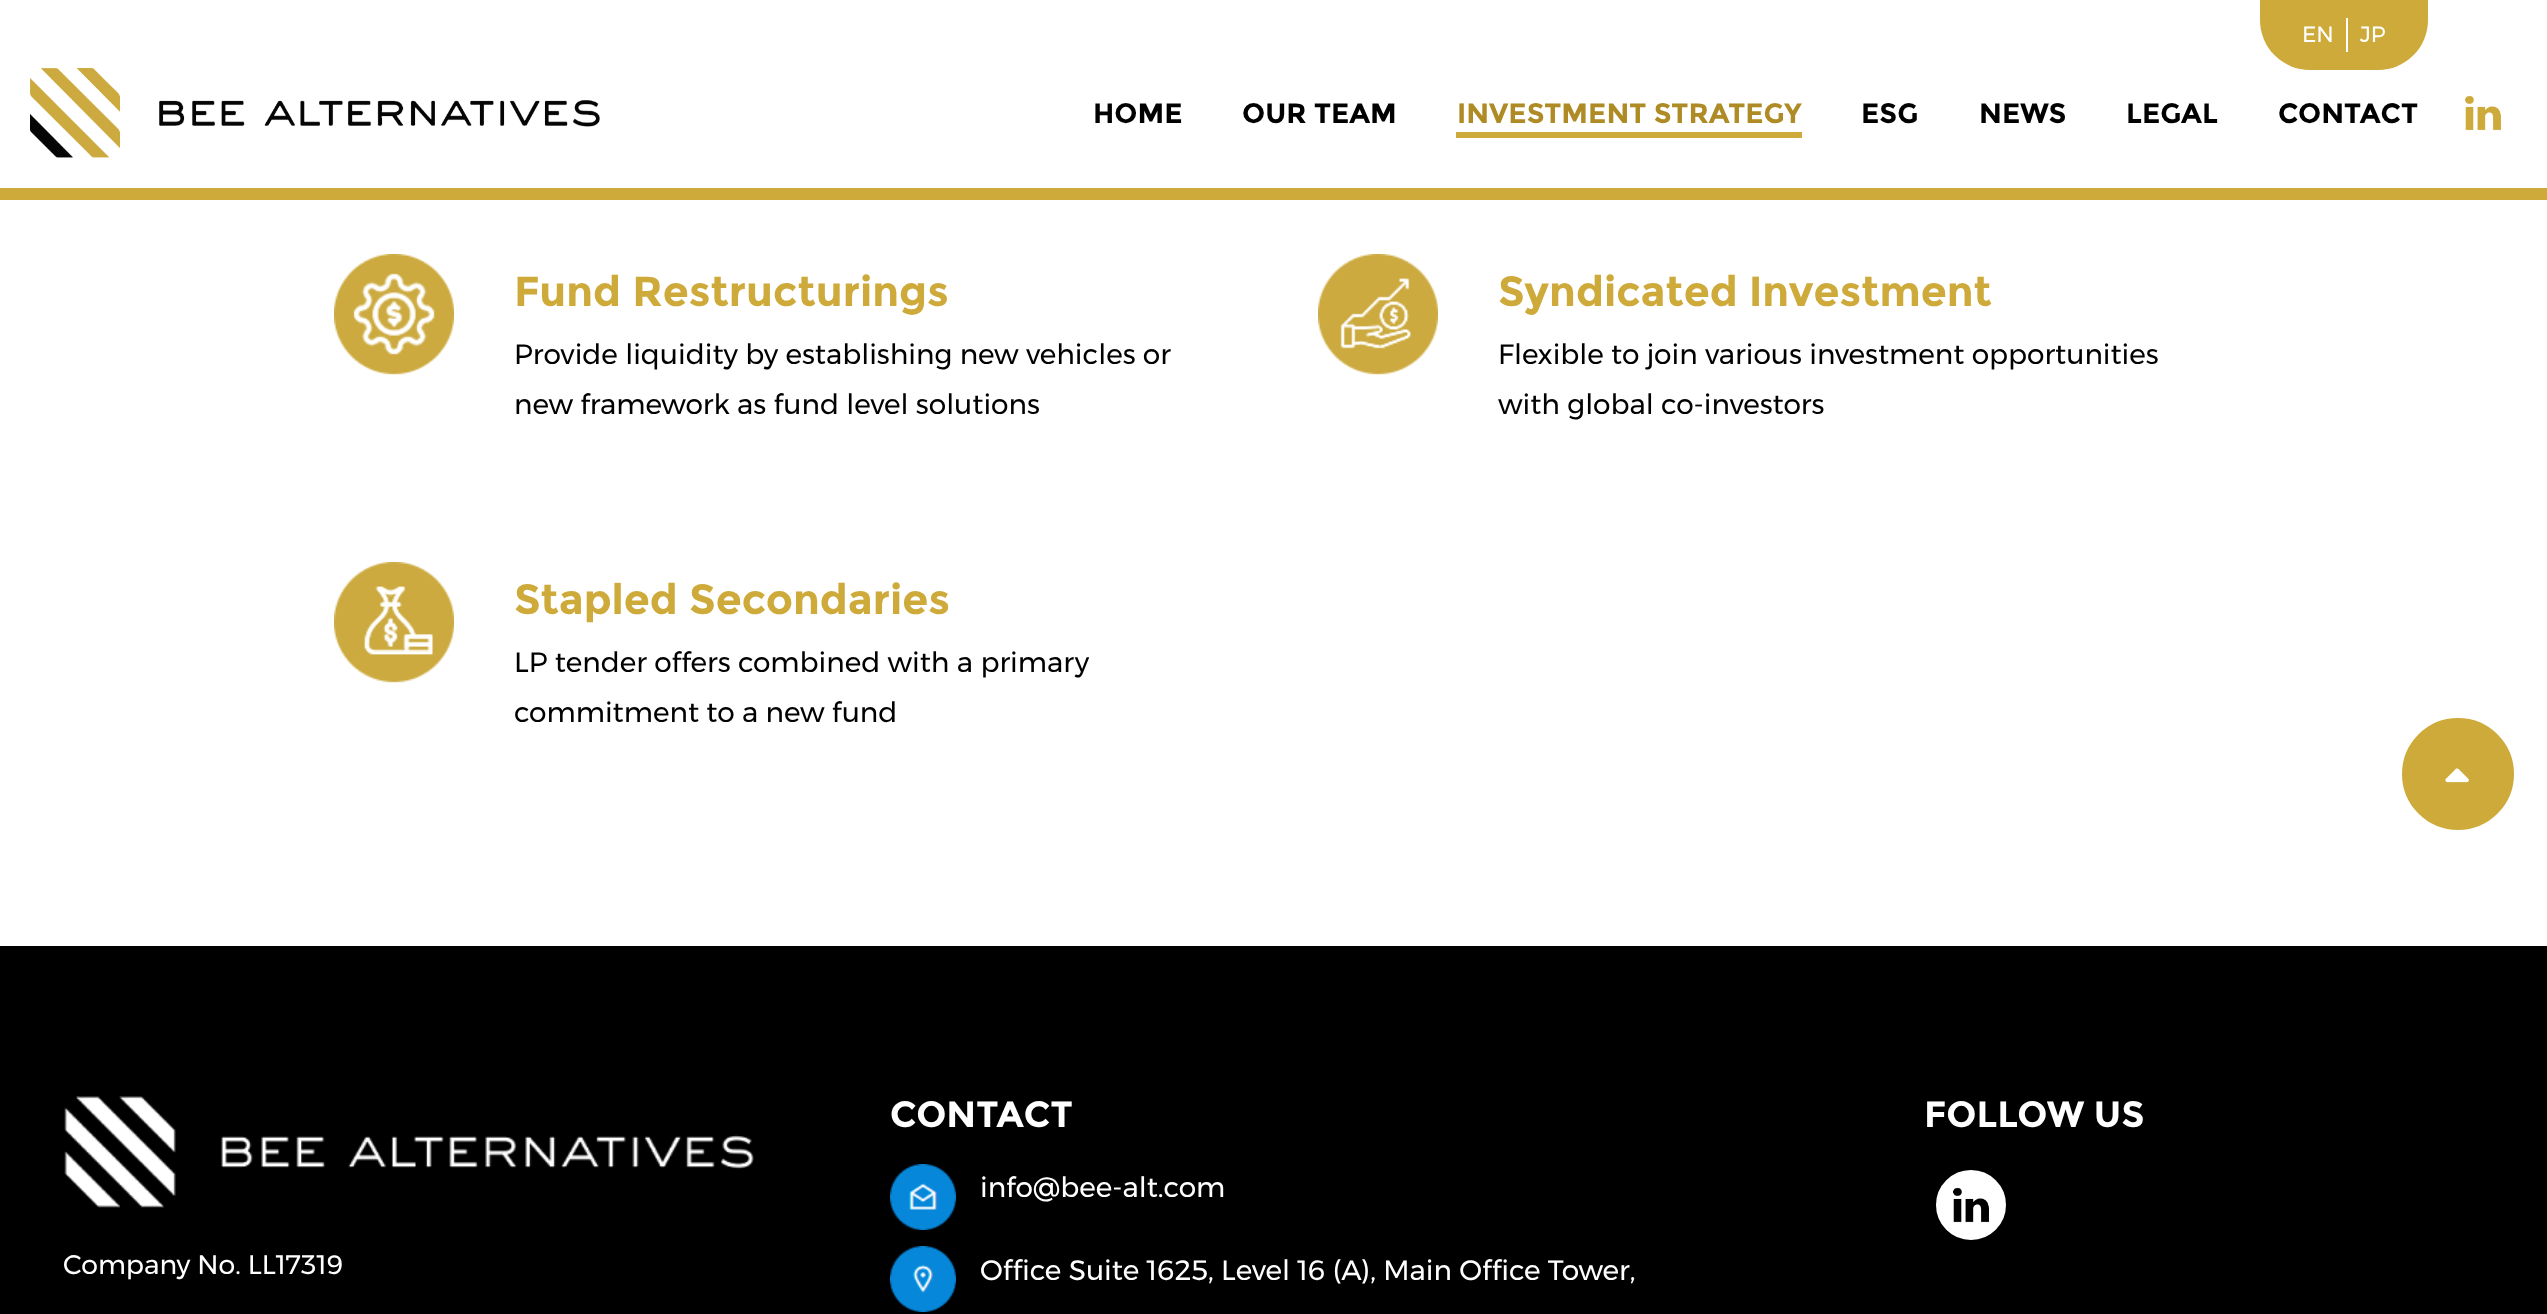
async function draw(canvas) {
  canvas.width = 2547
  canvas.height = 1314
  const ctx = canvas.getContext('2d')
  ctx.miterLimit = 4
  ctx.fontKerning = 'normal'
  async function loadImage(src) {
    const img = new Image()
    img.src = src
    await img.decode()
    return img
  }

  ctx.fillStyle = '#fff'
  ctx.fillRect(0, 0, 2547, 1314)
  ctx.fillStyle = '#ceaa3a'
  ctx.beginPath()
  ctx.roundRect(2260, 0, 168, 70, [0, 0, 50, 50])
  ctx.fill()
  ctx.font = '22px Montserrat'
  ctx.fillStyle = '#fff'
  ctx.fillText('EN', 2302, 42)
  ctx.fillRect(2346, 18, 2, 34)
  ctx.fillText('JP', 2360, 42)
  ctx.fillStyle = '#ceaa3a'
  ctx.fillRect(0, 188, 2547, 12)
  ctx.drawImage(await loadImage('image0.png'), 30, 68, 570, 90)
  ctx.font = 'bold 28px Montserrat'
  ctx.fillStyle = '#000'
  ctx.fillText('HOME', 1093, 123)
  ctx.fillText('OUR TEAM', 1242, 123)
  ctx.fillStyle = '#ae8b24'
  ctx.fillText('INVESTMENT STRATEGY', 1457, 123)
  ctx.fillStyle = '#ceaa3a'
  ctx.fillRect(1456, 132, 346, 6)
  ctx.fillStyle = '#000'
  ctx.fillText('ESG', 1861, 123)
  ctx.fillText('NEWS', 1979, 123)
  ctx.fillText('LEGAL', 2126, 123)
  ctx.fillText('CONTACT', 2278, 123)
  ctx.drawImage(await loadImage('image1.png'), 2465, 96, 36, 35)
  ctx.drawImage(await loadImage('image2.png'), 334, 254, 120, 121)
  ctx.font = 'bold 42px Montserrat'
  ctx.fillStyle = '#ceaa3a'
  ctx.fillText('Fund Restructurings', 514, 306)
  ctx.font = '28px Montserrat'
  ctx.fillStyle = '#000'
  ctx.fillText('Provide liquidity by establishing new vehicles or', 514, 364)
  ctx.fillText('new framework as fund level solutions', 514, 414)
  ctx.drawImage(await loadImage('image3.png'), 1318, 254, 120, 121)
  ctx.font = 'bold 42px Montserrat'
  ctx.fillStyle = '#ceaa3a'
  ctx.fillText('Syndicated Investment', 1498, 306)
  ctx.font = '28px Montserrat'
  ctx.fillStyle = '#000'
  ctx.fillText('Flexible to join various investment opportunities', 1498, 364)
  ctx.fillText('with global co-investors', 1498, 414)
  ctx.drawImage(await loadImage('image4.png'), 334, 562, 120, 121)
  ctx.font = 'bold 42px Montserrat'
  ctx.fillStyle = '#ceaa3a'
  ctx.fillText('Stapled Secondaries', 514, 614)
  ctx.font = '28px Montserrat'
  ctx.fillStyle = '#000'
  ctx.fillText('LP tender offers combined with a primary', 514, 672)
  ctx.fillText('commitment to a new fund', 514, 722)
  ctx.fillStyle = '#ceaa3a'
  ctx.beginPath()
  ctx.arc(2458, 774, 58, 0, 2 * Math.PI)
  ctx.fill()
  ctx.strokeStyle = '#fff'
  ctx.lineWidth = 4
  ctx.stroke()
  ctx.drawImage(await loadImage('image5.png'), 2445, 768, 24, 15)
  ctx.fillStyle = '#000'
  ctx.fillRect(0, 946, 2547, 368)
  ctx.font = 'bold 36.5px Montserrat'
  ctx.fillStyle = '#fff'
  ctx.fillText('CONTACT', 890, 1127)
  ctx.drawImage(await loadImage('image6.png'), 890, 1164, 66, 66)
  ctx.font = '28px Montserrat'
  ctx.fillText('info@bee-alt.com', 980, 1197)
  ctx.drawImage(await loadImage('image7.png'), 890, 1246, 66, 66)
  ctx.fillText('Office Suite 1625, Level 16 (A), Main Office Tower,', 980, 1280)
  ctx.font = 'bold 36.5px Montserrat'
  ctx.fillText('FOLLOW US', 1924, 1127)
  ctx.beginPath()
  ctx.arc(1971, 1205, 33, 0, 2 * Math.PI)
  ctx.fill()
  ctx.stroke()
  ctx.drawImage(await loadImage('image8.png'), 1953, 1188, 36, 35)
  ctx.drawImage(await loadImage('image9.png'), 64, 1096, 690, 112)
  ctx.font = '26.75px Montserrat'
  ctx.fillText('Company No. LL17319', 63, 1274)
}

draw(document.querySelector('canvas'))
